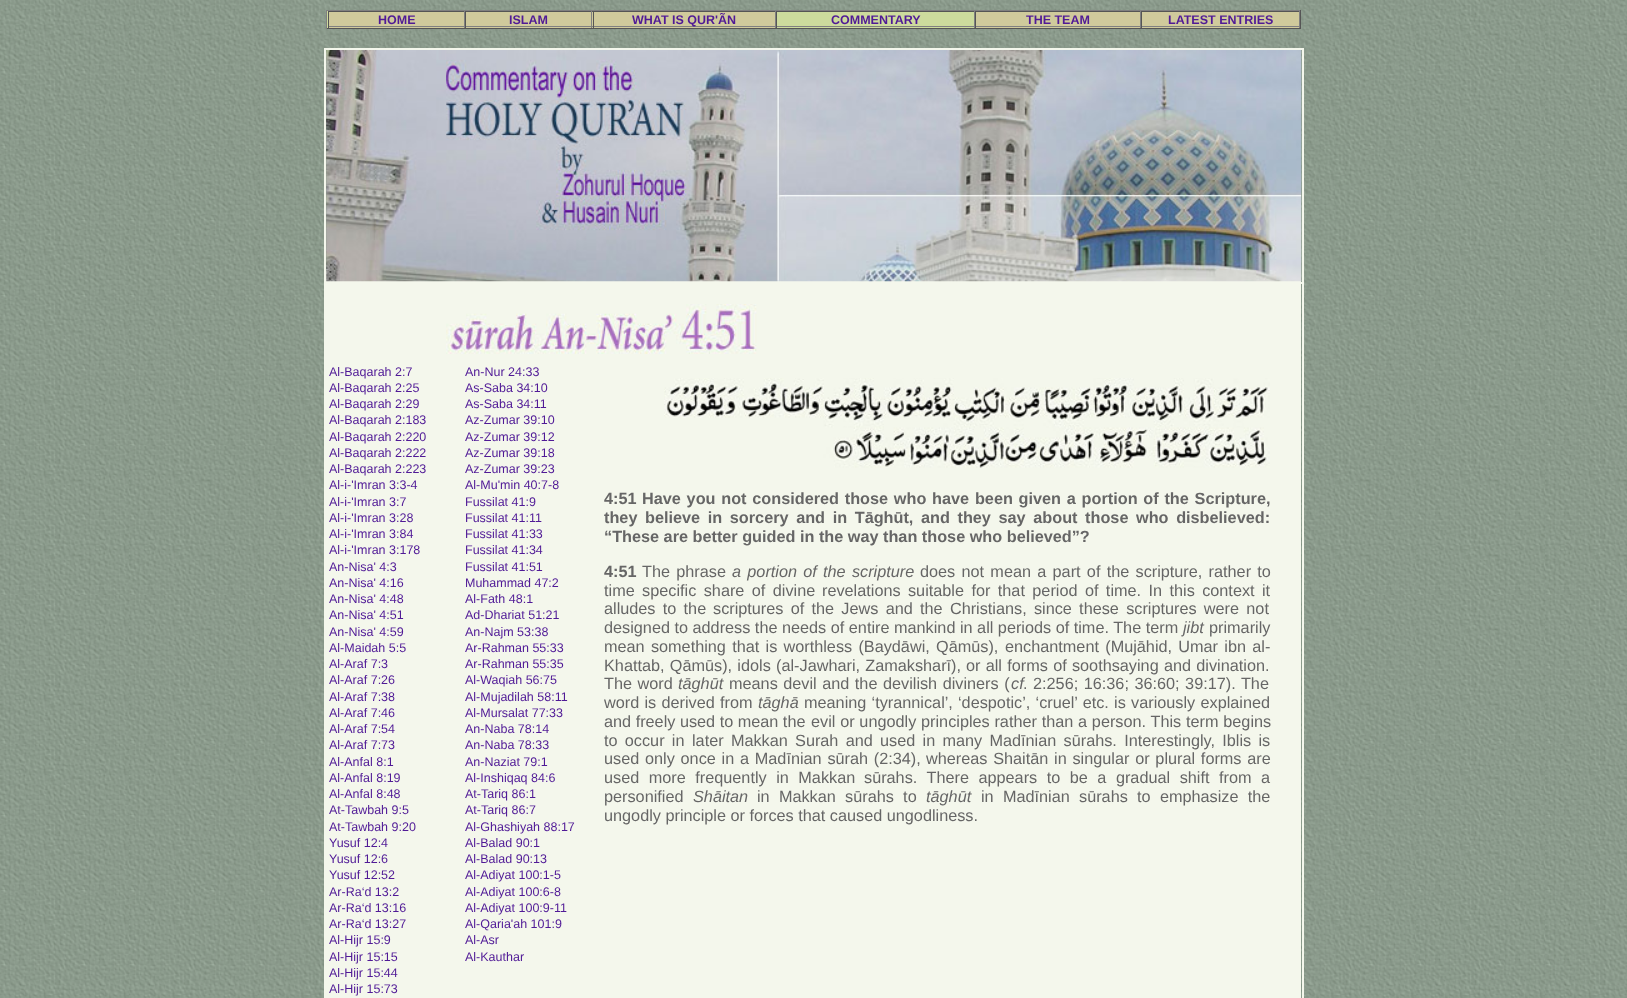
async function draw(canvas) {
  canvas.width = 1627
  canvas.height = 998
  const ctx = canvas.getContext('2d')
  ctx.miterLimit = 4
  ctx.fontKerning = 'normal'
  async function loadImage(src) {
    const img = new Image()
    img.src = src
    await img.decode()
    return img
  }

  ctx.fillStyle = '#fff'
  ctx.fillRect(0, 0, 1627, 998)
  ctx.drawImage(await loadImage('image0.png'), 0, 0, 1627, 998)
  ctx.fillStyle = '#cddb9d'
  ctx.fillRect(327, 11, 647, 17)
  ctx.fillStyle = '#808080'
  ctx.fillRect(326, 10, 975, 1)
  ctx.fillStyle = '#555'
  ctx.fillRect(1300, 10, 1, 19)
  ctx.fillRect(326, 28, 975, 1)
  ctx.fillStyle = '#808080'
  ctx.fillRect(326, 10, 1, 19)
  ctx.fillStyle = '#d0ca9c'
  ctx.fillRect(329, 12, 135, 16)
  ctx.fillStyle = '#555'
  ctx.fillRect(328, 11, 972, 1)
  ctx.fillStyle = '#808080'
  ctx.fillRect(464, 11, 1, 17)
  ctx.fillRect(328, 26, 137, 1)
  ctx.fillStyle = '#555'
  ctx.fillRect(328, 11, 1, 17)
  ctx.font = 'bold 12.5px Liberation Sans'
  ctx.fillStyle = '#501a96'
  ctx.fillText('HOME', 378, 24)
  ctx.fillStyle = '#d0ca9c'
  ctx.fillRect(466, 12, 127, 16)
  ctx.fillStyle = '#808080'
  ctx.fillRect(591, 11, 1, 17)
  ctx.fillRect(465, 26, 128, 1)
  ctx.fillStyle = '#555'
  ctx.fillRect(465, 11, 1, 17)
  ctx.fillStyle = '#501a96'
  ctx.fillText('ISLAM', 509, 24)
  ctx.fillStyle = '#d0ca9c'
  ctx.fillRect(594, 12, 181, 16)
  ctx.fillStyle = '#808080'
  ctx.fillRect(775, 11, 1, 17)
  ctx.fillRect(593, 26, 183, 1)
  ctx.fillStyle = '#555'
  ctx.fillRect(593, 11, 1, 17)
  ctx.fillStyle = '#501a96'
  ctx.fillText('WHAT IS QUR\'ÃN', 632, 24)
  ctx.fillStyle = '#808080'
  ctx.fillRect(974, 11, 1, 17)
  ctx.fillRect(776, 26, 199, 1)
  ctx.fillStyle = '#555'
  ctx.fillRect(776, 11, 1, 17)
  ctx.fillStyle = '#501a96'
  ctx.fillText('COMMENTARY', 831, 24)
  ctx.fillStyle = '#d0ca9c'
  ctx.fillRect(976, 12, 164, 16)
  ctx.fillStyle = '#808080'
  ctx.fillRect(1140, 11, 1, 17)
  ctx.fillRect(975, 26, 166, 1)
  ctx.fillStyle = '#555'
  ctx.fillRect(975, 11, 1, 17)
  ctx.fillStyle = '#501a96'
  ctx.fillText('THE TEAM', 1026, 24)
  ctx.fillStyle = '#d0ca9c'
  ctx.fillRect(1142, 12, 157, 16)
  ctx.fillStyle = '#808080'
  ctx.fillRect(1299, 11, 1, 17)
  ctx.fillRect(1141, 26, 159, 1)
  ctx.fillStyle = '#555'
  ctx.fillRect(1141, 11, 1, 17)
  ctx.fillStyle = '#501a96'
  ctx.fillText('LATEST ENTRIES', 1168, 24)
  ctx.strokeStyle = '#f4f7ec'
  ctx.strokeRect(324.5, 48.5, 979, 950)
  ctx.strokeRect(325.5, 49.5, 977, 233)
  ctx.strokeRect(325.5, 283.5, 977, 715)
  ctx.fillStyle = '#f4f7ec'
  ctx.fillRect(326, 271, 944, 90)
  ctx.fillRect(1270, 281, 31, 80)
  ctx.drawImage(await loadImage('image1.png'), 326, 50, 976, 232)
  ctx.drawImage(await loadImage('image2.png'), 446, 304, 311, 50)
  ctx.fillRect(326, 361, 975, 637)
  ctx.font = '12.5px Liberation Sans'
  ctx.fillStyle = '#501a96'
  ctx.fillText('Al-Baqarah 2:7', 329, 376)
  ctx.fillText('Al-Baqarah 2:25', 329, 392)
  ctx.fillText('Al-Baqarah 2:29', 329, 408)
  ctx.fillText('Al-Baqarah 2:183', 329, 424)
  ctx.fillText('Al-Baqarah 2:220', 329, 441)
  ctx.fillText('Al-Baqarah 2:222', 329, 457)
  ctx.fillText('Al-Baqarah 2:223', 329, 473)
  ctx.fillText('Al-i-\'Imran 3:3-4', 329, 489)
  ctx.fillText('Al-i-\'Imran 3:7', 329, 506)
  ctx.fillText('Al-i-\'Imran 3:28', 329, 522)
  ctx.fillText('Al-i-\'Imran 3:84', 329, 538)
  ctx.fillText('Al-i-\'Imran 3:178', 329, 554)
  ctx.fillText('An-Nisa\' 4:3', 329, 571)
  ctx.fillText('An-Nisa\' 4:16', 329, 587)
  ctx.fillText('An-Nisa\' 4:48', 329, 603)
  ctx.fillText('An-Nisa\' 4:51', 329, 619)
  ctx.fillText('An-Nisa\' 4:59', 329, 636)
  ctx.fillText('Al-Maidah 5:5', 329, 652)
  ctx.fillText('Al-Araf 7:3', 329, 668)
  ctx.fillText('Al-Araf 7:26', 329, 684)
  ctx.fillText('Al-Araf 7:38', 329, 701)
  ctx.fillText('Al-Araf 7:46', 329, 717)
  ctx.fillText('Al-Araf 7:54', 329, 733)
  ctx.fillText('Al-Araf 7:73', 329, 749)
  ctx.fillText('Al-Anfal 8:1', 329, 766)
  ctx.fillText('Al-Anfal 8:19', 329, 782)
  ctx.fillText('Al-Anfal 8:48', 329, 798)
  ctx.fillText('At-Tawbah 9:5', 329, 814)
  ctx.fillText('At-Tawbah 9:20', 329, 831)
  ctx.fillText('Yusuf 12:4', 329, 847)
  ctx.fillText('Yusuf 12:6', 329, 863)
  ctx.fillText('Yusuf 12:52', 329, 879)
  ctx.fillText('Ar-Ra‘d 13:2', 329, 896)
  ctx.fillText('Ar-Ra‘d 13:16', 329, 912)
  ctx.fillText('Ar-Ra‘d 13:27', 329, 928)
  ctx.fillText('Al-Hijr 15:9', 329, 944)
  ctx.fillText('Al-Hijr 15:15', 329, 961)
  ctx.fillText('Al-Hijr 15:44', 329, 977)
  ctx.fillText('Al-Hijr 15:73', 329, 993)
  ctx.fillText('An-Nur 24:33', 465, 376)
  ctx.fillText('As-Saba 34:10', 465, 392)
  ctx.fillText('As-Saba 34:11', 465, 408)
  ctx.fillText('Az-Zumar 39:10', 465, 424)
  ctx.fillText('Az-Zumar 39:12', 465, 441)
  ctx.fillText('Az-Zumar 39:18', 465, 457)
  ctx.fillText('Az-Zumar 39:23', 465, 473)
  ctx.fillText('Al-Mu\'min 40:7-8', 465, 489)
  ctx.fillText('Fussilat 41:9', 465, 506)
  ctx.fillText('Fussilat 41:11', 465, 522)
  ctx.fillText('Fussilat 41:33', 465, 538)
  ctx.fillText('Fussilat 41:34', 465, 554)
  ctx.fillText('Fussilat 41:51', 465, 571)
  ctx.fillText('Muhammad 47:2', 465, 587)
  ctx.fillText('Al-Fath 48:1', 465, 603)
  ctx.fillText('Ad-Dhariat 51:21', 465, 619)
  ctx.fillText('An-Najm 53:38', 465, 636)
  ctx.fillText('Ar-Rahman 55:33', 465, 652)
  ctx.fillText('Ar-Rahman 55:35', 465, 668)
  ctx.fillText('Al-Waqiah 56:75', 465, 684)
  ctx.fillText('Al-Mujadilah 58:11', 465, 701)
  ctx.fillText('Al-Mursalat 77:33', 465, 717)
  ctx.fillText('An-Naba 78:14', 465, 733)
  ctx.fillText('An-Naba 78:33', 465, 749)
  ctx.fillText('An-Naziat 79:1', 465, 766)
  ctx.fillText('Al-Inshiqaq 84:6', 465, 782)
  ctx.fillText('At-Tariq 86:1', 465, 798)
  ctx.fillText('At-Tariq 86:7', 465, 814)
  ctx.fillText('Al-Ghashiyah 88:17', 465, 831)
  ctx.fillText('Al-Balad 90:1', 465, 847)
  ctx.fillText('Al-Balad 90:13', 465, 863)
  ctx.fillText('Al-Adiyat 100:1-5', 465, 879)
  ctx.fillText('Al-Adiyat 100:6-8', 465, 896)
  ctx.fillText('Al-Adiyat 100:9-11', 465, 912)
  ctx.fillText('Al-Qaria\'ah 101:9', 465, 928)
  ctx.fillText('Al-Asr', 465, 944)
  ctx.fillText('Al-Kauthar', 465, 961)
  ctx.drawImage(await loadImage('image3.png'), 664, 378, 606, 90)
  ctx.font = 'bold 16.25px Liberation Sans'
  ctx.fillStyle = '#666'
  ctx.fillText('4:51', 604, 504)
  ctx.wordSpacing = '1.25px'
  ctx.fillText('Have you not considered those who have been given a portion of the Scripture,', 642, 504)
  ctx.wordSpacing = '3.1px'
  ctx.fillText('they believe in sorcery and in Tāghūt, and they say about those who disbelieved:', 604, 523)
  ctx.wordSpacing = '0px'
  ctx.fillText('“These are better guided in the way than those who believed”?', 604, 542)
  ctx.fillText('4:51', 604, 577)
  ctx.wordSpacing = '1.75px'
  ctx.font = '16.25px Liberation Sans'
  ctx.fillText('The phrase', 642, 577)
  ctx.font = 'italic 16.25px Liberation Sans'
  ctx.fillText('a portion of the scripture', 732, 577)
  ctx.font = '16.25px Liberation Sans'
  ctx.fillText('does not mean a part of the scripture, rather to', 920, 577)
  ctx.wordSpacing = '2.9px'
  ctx.fillText('time specific share of divine', 604, 596)
  ctx.fillText('revelations suitable for that period of time. In this context it', 822, 596)
  ctx.wordSpacing = '2.75px'
  ctx.fillText('alludes to the', 604, 614)
  ctx.fillText('scriptures of the Jews and the Christians, since these scriptures were not', 713, 614)
  ctx.wordSpacing = '0px'
  ctx.fillText('designed to address the needs of entire mankind in all periods of time. The term', 604, 633)
  ctx.font = 'italic 16.25px Liberation Sans'
  ctx.fillText('jibt', 1183, 633)
  ctx.font = '16.25px Liberation Sans'
  ctx.fillText('primarily', 1209, 633)
  ctx.wordSpacing = '1.75px'
  ctx.fillText('mean something that is worthless (Baydāwi, Qāmūs),', 604, 652)
  ctx.fillText('enchantment (Mujāhid, Umar ibn al-', 1005, 652)
  ctx.wordSpacing = '0.75px'
  ctx.fillText('Khattab, Qāmūs), idols (al-Jawhari, Zamaksharī),', 604, 671)
  ctx.fillText('or all forms of soothsaying and divination.', 966, 671)
  ctx.wordSpacing = '1px'
  ctx.fillText('The word', 604, 689)
  ctx.wordSpacing = '0px'
  ctx.font = 'italic 16.25px Liberation Sans'
  ctx.fillText('tāghūt', 678, 689)
  ctx.wordSpacing = '1px'
  ctx.font = '16.25px Liberation Sans'
  ctx.fillText('means devil and the devilish diviners (', 729, 689)
  ctx.wordSpacing = '0px'
  ctx.font = 'italic 16.25px Liberation Sans'
  ctx.fillText('cf', 1011, 689)
  ctx.wordSpacing = '1px'
  ctx.font = '16.25px Liberation Sans'
  ctx.fillText('. 2:256; 16:36; 36:60; 39:17). The', 1023, 689)
  ctx.wordSpacing = '0.75px'
  ctx.fillText('word is derived', 604, 708)
  ctx.wordSpacing = '0px'
  ctx.fillText('from', 720, 708)
  ctx.font = 'italic 16.25px Liberation Sans'
  ctx.fillText('tāghā', 758, 708)
  ctx.wordSpacing = '0.75px'
  ctx.font = '16.25px Liberation Sans'
  ctx.fillText('meaning ‘tyrannical’,', 804, 708)
  ctx.fillText('‘despotic’, ‘cruel’ etc. is variously explained', 958, 708)
  ctx.wordSpacing = '0px'
  ctx.fillText('and freely used to mean the', 604, 727)
  ctx.wordSpacing = '0.25px'
  ctx.fillText('evil or ungodly principles rather than a person. This term begins', 811, 727)
  ctx.wordSpacing = '2.75px'
  ctx.fillText('to occur in', 604, 746)
  ctx.fillText('later Makkan Surah and used in many Madīnian sūrahs. Interestingly, Iblis is', 692, 746)
  ctx.wordSpacing = '1.25px'
  ctx.fillText('used only once in a Madīnian sūrah (2:34),', 604, 764)
  ctx.fillText('whereas Shaitān in singular or plural forms are', 926, 764)
  ctx.wordSpacing = '5px'
  ctx.fillText('used more frequently in Makkan', 604, 783)
  ctx.fillText('sūrahs. There appears to be a gradual shift from a', 864, 783)
  ctx.wordSpacing = '0px'
  ctx.fillText('personified', 604, 802)
  ctx.font = 'italic 16.25px Liberation Sans'
  ctx.fillText('Shāitan', 693, 802)
  ctx.wordSpacing = '4.75px'
  ctx.font = '16.25px Liberation Sans'
  ctx.fillText('in Makkan sūrahs to', 757, 802)
  ctx.wordSpacing = '0px'
  ctx.font = 'italic 16.25px Liberation Sans'
  ctx.fillText('tāghūt', 926, 802)
  ctx.wordSpacing = '4.75px'
  ctx.font = '16.25px Liberation Sans'
  ctx.fillText('in Madīnian sūrahs to emphasize the', 981, 802)
  ctx.wordSpacing = '0px'
  ctx.fillText('ungodly principle or forces that caused ungodliness.', 604, 821)
}

draw(document.querySelector('canvas'))
